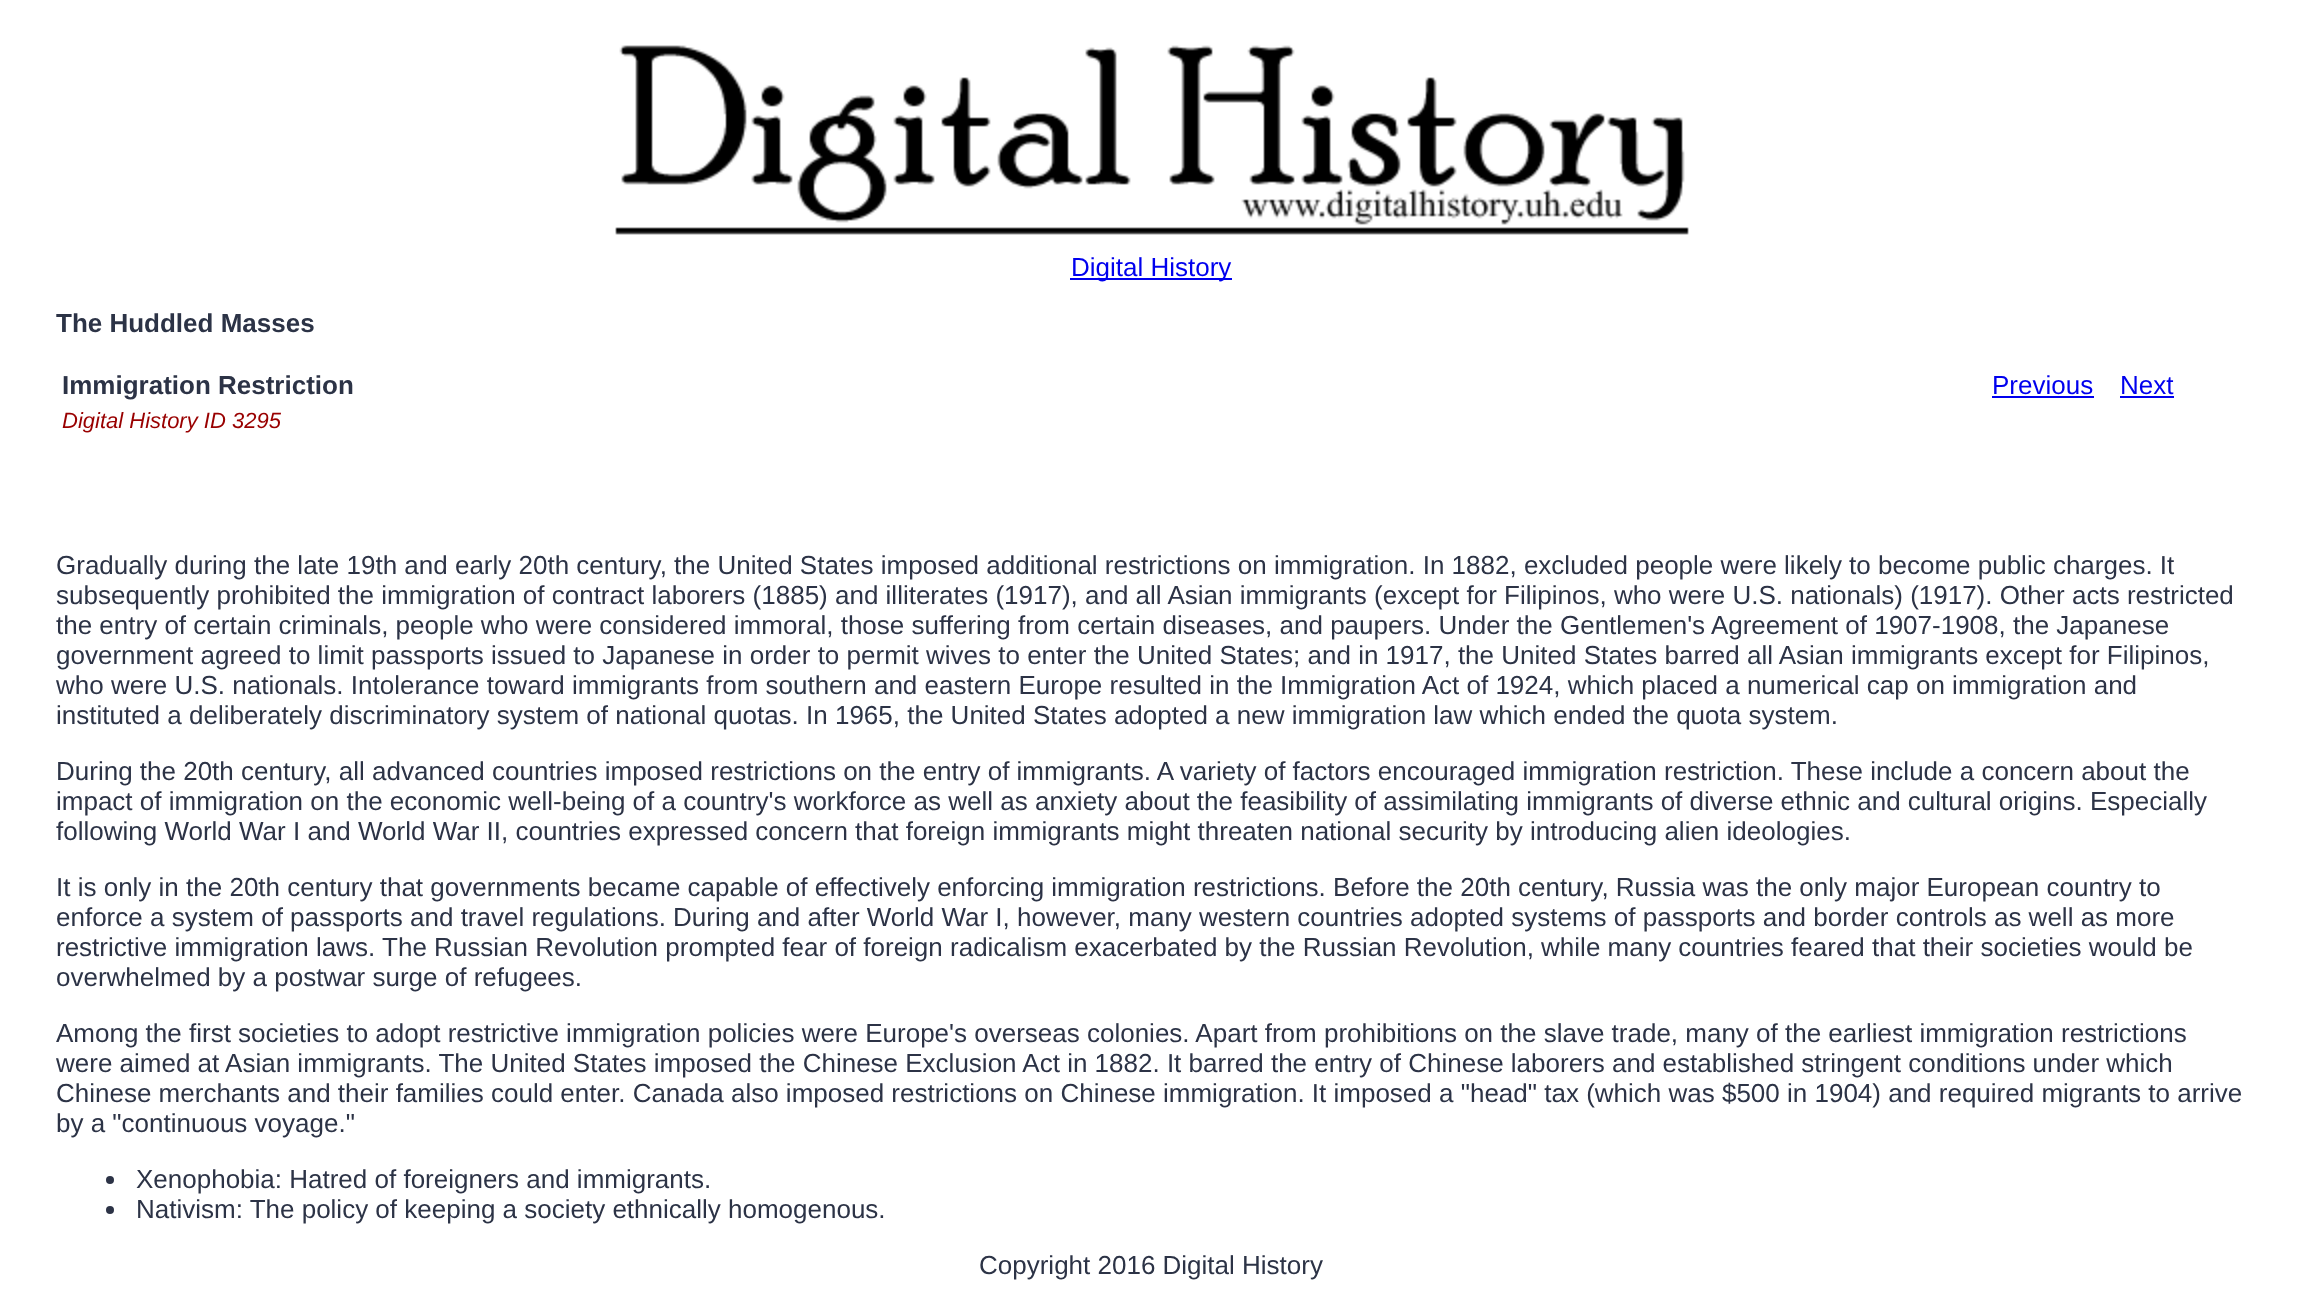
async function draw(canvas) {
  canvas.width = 2302
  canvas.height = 1302
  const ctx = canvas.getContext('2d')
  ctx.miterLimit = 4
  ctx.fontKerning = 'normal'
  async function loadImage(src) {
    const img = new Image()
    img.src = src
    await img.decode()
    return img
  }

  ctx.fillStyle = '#fff'
  ctx.fillRect(0, 0, 2302, 1302)
  ctx.drawImage(await loadImage('image0.png'), 615, 45, 1074, 190)
  ctx.fillStyle = '#00e'
  ctx.fillRect(1070, 278, 162, 2)
  ctx.font = '26px Liberation Sans'
  ctx.fillText('Digital History', 1071, 276)
  ctx.font = 'bold 26px Liberation Sans'
  ctx.fillStyle = '#2c3346'
  ctx.fillText('The Huddled Masses', 56, 332)
  ctx.fillText('Immigration Restriction', 62, 394)
  ctx.font = '26px Liberation Sans'
  ctx.fillStyle = '#00e'
  ctx.fillText('Previous', 1992, 394)
  ctx.fillRect(1992, 396, 102, 2)
  ctx.fillText('Next', 2120, 394)
  ctx.fillRect(2120, 396, 54, 2)
  ctx.font = 'italic 22px Liberation Sans'
  ctx.fillStyle = '#900'
  ctx.fillText('Digital History ID 3295', 62, 428)
  ctx.font = '26px Liberation Sans'
  ctx.fillStyle = '#2c3346'
  ctx.fillText('Gradually during the late 19th and early 20th century, the United States imposed additional restrictions on immigration. In 1882, excluded people were likely to become public charges. It', 56, 574)
  ctx.fillText('subsequently prohibited the immigration of contract laborers (1885) and illiterates (1917), and all Asian immigrants (except for Filipinos, who were U.S. nationals) (1917). Other acts restricted', 56, 604)
  ctx.fillText('the entry of certain criminals, people who were considered immoral, those suffering from certain diseases, and paupers. Under the Gentlemen\'s Agreement of 1907-1908, the Japanese', 56, 634)
  ctx.fillText('government agreed to limit passports issued to Japanese in order to permit wives to enter the United States; and in 1917, the United States barred all Asian immigrants except for Filipinos,', 56, 664)
  ctx.fillText('who were U.S. nationals. Intolerance toward immigrants from southern and eastern Europe resulted in the Immigration Act of 1924, which placed a numerical cap on immigration and', 56, 694)
  ctx.fillText('instituted a deliberately discriminatory system of national quotas. In 1965, the United States adopted a new immigration law which ended the quota system.', 56, 724)
  ctx.fillText('During the 20th century, all advanced countries imposed restrictions on the entry of immigrants. A variety of factors encouraged immigration restriction. These include a concern about the', 56, 780)
  ctx.fillText('impact of immigration on the economic well-being of a country\'s workforce as well as anxiety about the feasibility of assimilating immigrants of diverse ethnic and cultural origins. Especially', 56, 810)
  ctx.fillText('following World War I and World War II, countries expressed concern that foreign immigrants might threaten national security by introducing alien ideologies.', 56, 840)
  ctx.fillText('It is only in the 20th century that governments became capable of effectively enforcing immigration restrictions. Before the 20th century, Russia was the only major European country to', 56, 896)
  ctx.fillText('enforce a system of passports and travel regulations. During and after World War I, however, many western countries adopted systems of passports and border controls as well as more', 56, 926)
  ctx.fillText('restrictive immigration laws. The Russian Revolution prompted fear of foreign radicalism exacerbated by the Russian Revolution, while many countries feared that their societies would be', 56, 956)
  ctx.fillText('overwhelmed by a postwar surge of refugees.', 56, 986)
  ctx.fillText('Among the first societies to adopt restrictive immigration policies were Europe\'s overseas colonies. Apart from prohibitions on the slave trade, many of the earliest immigration restrictions', 56, 1042)
  ctx.fillText('were aimed at Asian immigrants. The United States imposed the Chinese Exclusion Act in 1882. It barred the entry of Chinese laborers and established stringent conditions under which', 56, 1072)
  ctx.fillText('Chinese merchants and their families could enter. Canada also imposed restrictions on Chinese immigration. It imposed a "head" tax (which was $500 in 1904) and required migrants to arrive', 56, 1102)
  ctx.fillText('by a "continuous voyage."', 56, 1132)
  ctx.beginPath()
  ctx.arc(110, 1180, 4, 0, 2 * Math.PI)
  ctx.fill()
  ctx.fillText('Xenophobia: Hatred of foreigners and immigrants.', 136, 1188)
  ctx.beginPath()
  ctx.arc(110, 1210, 4, 0, 2 * Math.PI)
  ctx.fill()
  ctx.fillText('Nativism: The policy of keeping a society ethnically homogenous.', 136, 1218)
  ctx.fillText('Copyright 2016 Digital History', 979, 1274)
}

draw(document.querySelector('canvas'))
